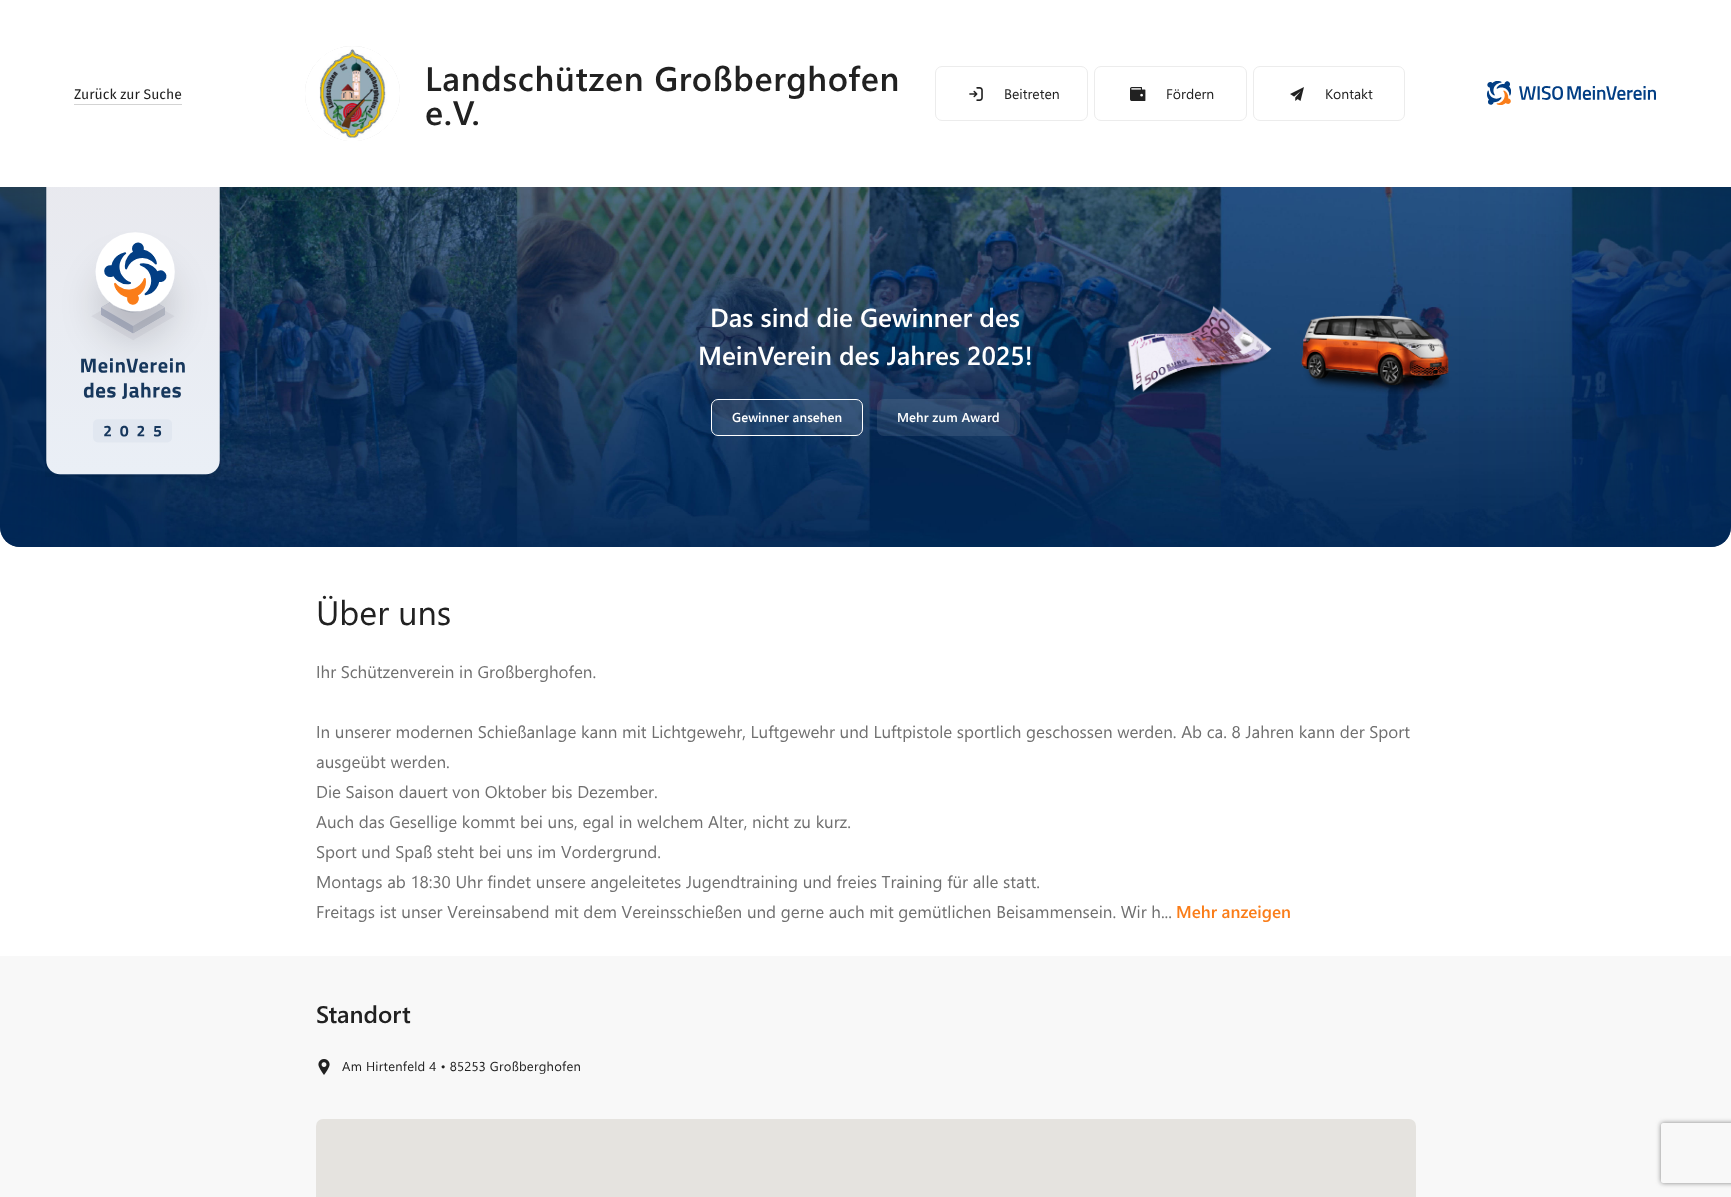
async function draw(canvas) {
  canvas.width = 1731
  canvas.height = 1197
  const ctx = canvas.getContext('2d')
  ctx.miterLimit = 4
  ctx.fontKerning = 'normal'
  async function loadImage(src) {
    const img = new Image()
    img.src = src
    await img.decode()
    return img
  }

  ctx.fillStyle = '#fff'
  ctx.fillRect(0, 0, 1731, 1197)
  ctx.font = '14px Fira Sans'
  ctx.fillStyle = '#212121'
  ctx.fillText('Zurück zur Suche', 74, 99)
  ctx.fillStyle = '#d3d3d3'
  ctx.fillRect(74, 104, 108, 1)
  ctx.beginPath()
  ctx.arc(352.5, 93.5, 47, 0, 2 * Math.PI)
  ctx.strokeStyle = '#d3d3d3'
  ctx.stroke()
  ctx.drawImage(await loadImage('image0.png'), 305, 46, 95, 95)
  ctx.letterSpacing = '0.7px'
  ctx.font = '600 34px Segoe UI'
  ctx.fillStyle = '#212121'
  ctx.fillText('Landschützen Großberghofen', 425, 91)
  ctx.fillText('e.V.', 425, 125)
  ctx.beginPath()
  ctx.roundRect(935.5, 66.5, 152, 54, 6.5)
  ctx.strokeStyle = '#ececec'
  ctx.stroke()
  ctx.drawImage(await loadImage('image1.png'), 969, 87, 14, 14)
  ctx.letterSpacing = '0px'
  ctx.font = '14px Segoe UI'
  ctx.fillText('Beitreten', 1004, 99)
  ctx.beginPath()
  ctx.roundRect(1094.5, 66.5, 152, 54, 6.5)
  ctx.stroke()
  ctx.drawImage(await loadImage('image2.png'), 1130, 87, 16, 14)
  ctx.fillText('Fördern', 1166, 99)
  ctx.beginPath()
  ctx.roundRect(1253.5, 66.5, 151, 54, 6.5)
  ctx.stroke()
  ctx.drawImage(await loadImage('image3.png'), 1290, 87, 14, 14)
  ctx.fillText('Kontakt', 1325, 99)
  ctx.drawImage(await loadImage('image4.png'), 1487, 81, 169, 24)
  ctx.drawImage(await loadImage('image5.png'), 0, 187, 1731, 360)
  ctx.save()
  ctx.beginPath()
  ctx.moveTo(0, 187)
  ctx.lineTo(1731, 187)
  ctx.lineTo(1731, 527)
  ctx.bezierCurveTo(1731, 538, 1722, 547, 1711, 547)
  ctx.lineTo(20, 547)
  ctx.bezierCurveTo(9, 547, 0, 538, 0, 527)
  ctx.closePath()
  ctx.clip()
  ctx.fillStyle = '#012857'
  ctx.filter = 'blur(80px)'
  ctx.beginPath()
  ctx.rect(-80, 107, 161, 520)
  ctx.fill()
  ctx.filter = 'none'
  ctx.filter = 'blur(80px)'
  ctx.beginPath()
  ctx.rect(1650, 107, 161, 520)
  ctx.fill()
  ctx.filter = 'none'
  ctx.restore()
  ctx.drawImage(await loadImage('image6.png'), 45, 187, 176, 290)
  ctx.font = '600 26px Segoe UI'
  ctx.fillStyle = '#fff'
  ctx.fillText('Das sind die Gewinner des', 710, 327)
  ctx.fillText('MeinVerein des Jahres 2025!', 698, 365)
  ctx.fillStyle = '#ffffff17'
  ctx.beginPath()
  ctx.roundRect(711.5, 399.5, 151, 36, 6.5)
  ctx.fill()
  ctx.strokeStyle = '#fff'
  ctx.stroke()
  ctx.letterSpacing = '0.1px'
  ctx.font = '600 13px Segoe UI'
  ctx.fillStyle = '#fff'
  ctx.fillText('Gewinner ansehen', 732, 422)
  ctx.fillStyle = '#ffffff17'
  ctx.beginPath()
  ctx.roundRect(877, 399, 143, 37, 7)
  ctx.fill()
  ctx.fillStyle = '#fff'
  ctx.fillText('Mehr zum Award', 897, 422)
  ctx.drawImage(await loadImage('image7.png'), 1127, 305, 322, 89)
  ctx.letterSpacing = '0px'
  ctx.font = '34px Segoe UI'
  ctx.fillStyle = '#212121'
  ctx.fillText('Über uns', 316, 625)
  ctx.font = '17px Segoe UI'
  ctx.fillStyle = '#707070'
  ctx.fillText('Ihr Schützenverein in Großberghofen.', 316, 678)
  ctx.fillText('In unserer modernen Schießanlage kann mit Lichtgewehr, Luftgewehr und Luftpistole sportlich geschossen werden. Ab ca. 8 Jahren kann der Sport', 316, 738)
  ctx.fillText('ausgeübt werden.', 316, 768)
  ctx.fillText('Die Saison dauert von Oktober bis Dezember.', 316, 798)
  ctx.fillText('Auch das Gesellige kommt bei uns, egal in welchem Alter, nicht zu kurz.', 316, 828)
  ctx.fillText('Sport und Spaß steht bei uns im Vordergrund.', 316, 858)
  ctx.fillText('Montags ab 18:30 Uhr findet unsere angeleitetes Jugendtraining und freies Training für alle statt.', 316, 888)
  ctx.fillText('Freitags ist unser Vereinsabend mit dem Vereinsschießen und gerne auch mit gemütlichen Beisammensein. Wir h...', 316, 918)
  ctx.font = '600 17px Segoe UI'
  ctx.fillStyle = '#fa7d19'
  ctx.fillText('Mehr anzeigen', 1176, 918)
  ctx.fillStyle = '#f8f8f8'
  ctx.fillRect(0, 956, 1731, 241)
  ctx.font = '600 24px Segoe UI'
  ctx.fillStyle = '#212121'
  ctx.fillText('Standort', 316, 1023)
  ctx.drawImage(await loadImage('image8.png'), 318, 1059, 12, 16)
  ctx.letterSpacing = '0.25px'
  ctx.font = '13px Segoe UI'
  ctx.fillText('Am Hirtenfeld 4 • 85253 Großberghofen', 342, 1071)
  ctx.fillStyle = '#e5e3df'
  ctx.beginPath()
  ctx.roundRect(316, 1119, 1100, 78, [7, 7, 0, 0])
  ctx.fill()
  ctx.save()
  ctx.beginPath()
  ctx.moveTo(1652, 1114)
  ctx.lineTo(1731, 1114)
  ctx.lineTo(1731, 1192)
  ctx.lineTo(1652, 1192)
  ctx.closePath()
  ctx.moveTo(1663, 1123)
  ctx.lineTo(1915, 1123)
  ctx.bezierCurveTo(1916, 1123, 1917, 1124, 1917, 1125)
  ctx.lineTo(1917, 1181)
  ctx.bezierCurveTo(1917, 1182, 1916, 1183, 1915, 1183)
  ctx.lineTo(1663, 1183)
  ctx.bezierCurveTo(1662, 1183, 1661, 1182, 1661, 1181)
  ctx.lineTo(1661, 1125)
  ctx.bezierCurveTo(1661, 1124, 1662, 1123, 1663, 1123)
  ctx.closePath()
  ctx.clip('evenodd')
  ctx.fillStyle = '#808080'
  ctx.filter = 'blur(2.5px)'
  ctx.beginPath()
  ctx.roundRect(1661, 1123, 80, 60, 2)
  ctx.fill()
  ctx.filter = 'none'
  ctx.restore()
}

draw(document.querySelector('canvas'))
